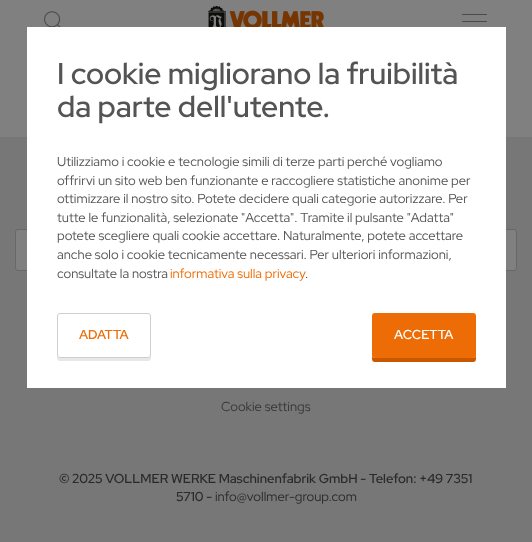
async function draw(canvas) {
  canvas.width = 532
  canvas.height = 542
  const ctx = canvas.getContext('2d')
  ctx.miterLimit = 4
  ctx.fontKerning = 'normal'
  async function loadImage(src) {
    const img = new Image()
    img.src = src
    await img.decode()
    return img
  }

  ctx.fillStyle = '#808080'
  ctx.fillRect(0, 0, 532, 542)
  ctx.drawImage(await loadImage('image0.png'), 44, 11, 17, 16)
  ctx.drawImage(await loadImage('image1.png'), 208, 6, 116, 21)
  ctx.fillStyle = '#474b4d'
  ctx.beginPath()
  ctx.roundRect(462, 14, 25, 1, 0.5)
  ctx.fill()
  ctx.beginPath()
  ctx.roundRect(462, 21, 25, 1, 0.5)
  ctx.fill()
  ctx.fillStyle = '#777'
  ctx.fillRect(0, 137, 532, 405)
  ctx.fillStyle = '#808080'
  ctx.beginPath()
  ctx.roundRect(15.5, 229.5, 501, 41, 2.5)
  ctx.fill()
  ctx.strokeStyle = '#686868'
  ctx.stroke()
  ctx.fillStyle = '#fff'
  ctx.fillRect(27, 27, 479, 361)
  ctx.font = '500 30px Red Hat Display'
  ctx.fillStyle = '#545454'
  ctx.fillText('I cookie migliorano la fruibilità', 57, 84)
  ctx.fillText('da parte dell\'utente.', 57, 117)
  ctx.font = '13px Red Hat Display'
  ctx.fillText('Utilizziamo i cookie e tecnologie simili di terze parti perché vogliamo', 57, 166)
  ctx.fillText('offrirvi un sito web ben funzionante e raccogliere statistiche anonime per', 57, 185)
  ctx.fillText('ottimizzare il nostro sito. Potete decidere quali categorie autorizzare. Per', 57, 203)
  ctx.fillText('tutte le funzionalità, selezionate "Accetta". Tramite il pulsante "Adatta"', 57, 222)
  ctx.fillText('potete scegliere quali cookie accettare. Naturalmente, potete accettare', 57, 240)
  ctx.fillText('anche solo i cookie tecnicamente necessari. Per ulteriori informazioni,', 57, 259)
  ctx.fillText('consultate la nostra', 57, 278)
  ctx.fillStyle = '#ed6c05'
  ctx.fillText('informativa sulla privacy', 170, 278)
  ctx.fillStyle = '#545454'
  ctx.fillText('.', 305, 278)
  ctx.fillStyle = '#e8e8e8'
  ctx.beginPath()
  ctx.moveTo(57, 356)
  ctx.lineTo(57, 358)
  ctx.bezierCurveTo(57, 360, 58, 361, 60, 361)
  ctx.lineTo(148, 361)
  ctx.bezierCurveTo(150, 361, 151, 360, 151, 358)
  ctx.lineTo(151, 319)
  ctx.lineTo(151, 318)
  ctx.lineTo(151, 355)
  ctx.bezierCurveTo(151, 357, 149, 358, 148, 358)
  ctx.lineTo(60, 358)
  ctx.bezierCurveTo(58, 358, 58, 357, 57, 356)
  ctx.closePath()
  ctx.fill()
  ctx.fillStyle = '#fff'
  ctx.beginPath()
  ctx.roundRect(57.5, 313.5, 93, 44, 2.5)
  ctx.fill()
  ctx.strokeStyle = '#cfcfcf'
  ctx.stroke()
  ctx.font = '500 13px Red Hat Display'
  ctx.fillStyle = '#ed6c05'
  ctx.fillText('ADATTA', 79, 339)
  ctx.fillStyle = '#c75800'
  ctx.beginPath()
  ctx.moveTo(372, 356)
  ctx.lineTo(372, 359)
  ctx.bezierCurveTo(372, 361, 373, 362, 375, 362)
  ctx.lineTo(473, 362)
  ctx.bezierCurveTo(475, 362, 476, 361, 476, 359)
  ctx.lineTo(476, 320)
  ctx.lineTo(476, 319)
  ctx.lineTo(476, 355)
  ctx.bezierCurveTo(476, 357, 474, 358, 473, 358)
  ctx.lineTo(375, 358)
  ctx.bezierCurveTo(373, 358, 373, 357, 372, 356)
  ctx.closePath()
  ctx.fill()
  ctx.fillStyle = '#ed6c05'
  ctx.beginPath()
  ctx.roundRect(372, 313, 104, 45, 3)
  ctx.fill()
  ctx.fillStyle = '#fff'
  ctx.fillText('ACCETTA', 394, 339)
  ctx.font = '13px Red Hat Display'
  ctx.fillStyle = '#373737'
  ctx.fillText('Cookie settings', 221, 411)
  ctx.font = '500 13px Red Hat Display'
  ctx.fillStyle = '#2a2a2a'
  ctx.fillText('© 2025 VOLLMER WERKE Maschinenfabrik GmbH - Telefon: +49 7351', 59, 483)
  ctx.fillText('5710 -', 176, 501)
  ctx.font = '13px Red Hat Display'
  ctx.fillText('info@vollmer-group.com', 215, 501)
}

draw(document.querySelector('canvas'))
